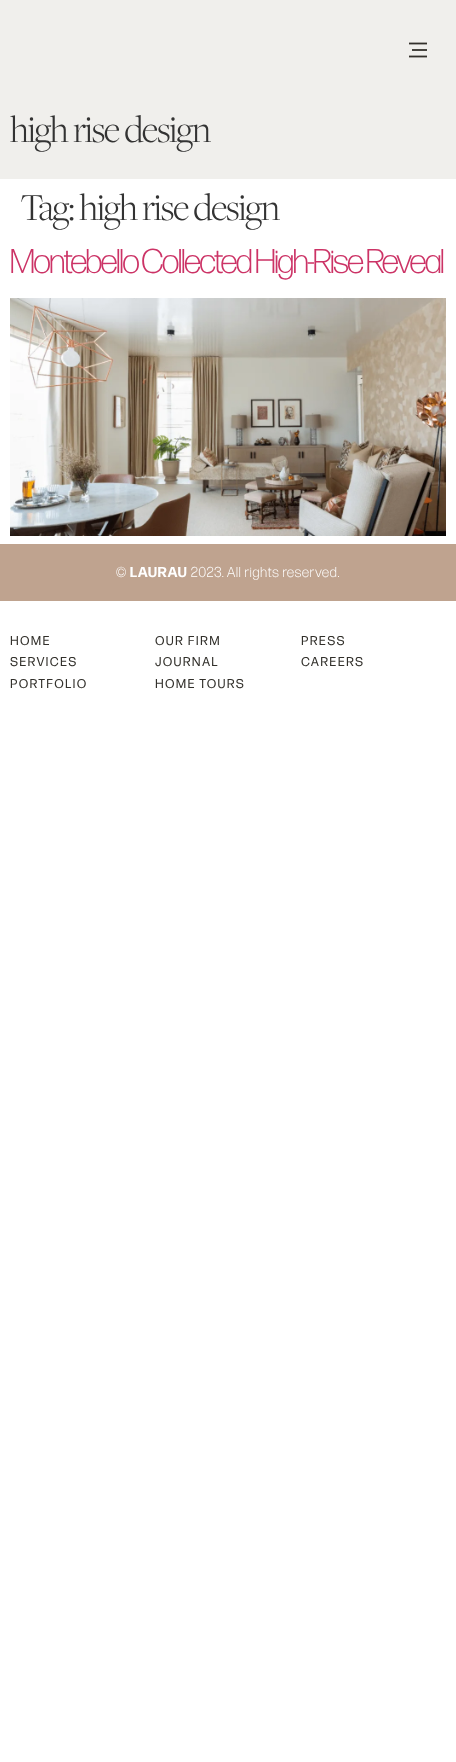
async function draw(canvas) {
  canvas.width = 456
  canvas.height = 1762
  const ctx = canvas.getContext('2d')
  ctx.miterLimit = 4
  ctx.fontKerning = 'normal'
  async function loadImage(src) {
    const img = new Image()
    img.src = src
    await img.decode()
    return img
  }

  ctx.fillStyle = '#fff'
  ctx.fillRect(0, 0, 456, 1762)
  ctx.fillStyle = '#f0efec'
  ctx.fillRect(0, 0, 456, 179)
  ctx.beginPath()
  ctx.moveTo(409, 43.5)
  ctx.lineTo(427, 43.5)
  ctx.strokeStyle = '#32302b'
  ctx.lineWidth = 1.8
  ctx.stroke()
  ctx.fillStyle = '#45433e'
  ctx.fillRect(412, 49, 15, 2)
  ctx.beginPath()
  ctx.moveTo(409, 56.5)
  ctx.lineTo(427, 56.5)
  ctx.stroke()
  ctx.letterSpacing = '-1.6px'
  ctx.font = '300 39.5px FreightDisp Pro'
  ctx.fillStyle = '#333'
  ctx.fillText('high rise design', 10, 142)
  ctx.fillText('Tag: high rise design', 20, 220)
  ctx.letterSpacing = '-1.35px'
  ctx.font = '300 34.4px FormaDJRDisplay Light'
  ctx.fillStyle = '#c36'
  ctx.fillText('Montebello Collected High-Rise Reveal', 10, 273)
  ctx.drawImage(await loadImage('image0.png'), 10, 298, 436, 238)
  ctx.fillStyle = '#bfa38f'
  ctx.fillRect(0, 544, 456, 57)
  ctx.letterSpacing = '0.85px'
  ctx.font = '300 14.4px FormaDJRDisplay Light'
  ctx.fillStyle = '#fff'
  ctx.fillText('©', 116, 577)
  ctx.font = 'bold 14.4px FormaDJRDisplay'
  ctx.fillText('LAURAU', 130, 577)
  ctx.font = '300 14.4px FormaDJRDisplay Light'
  ctx.fillText('2023. All rights reserved.', 191, 577)
  ctx.letterSpacing = '1.25px'
  ctx.font = '12.75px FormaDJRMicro'
  ctx.fillStyle = '#32302b'
  ctx.fillText('HOME', 10, 645)
  ctx.fillText('SERVICES', 10, 666)
  ctx.fillText('PORTFOLIO', 10, 688)
  ctx.fillText('OUR FIRM', 155, 645)
  ctx.fillText('JOURNAL', 155, 666)
  ctx.fillText('HOME TOURS', 155, 688)
  ctx.fillText('PRESS', 301, 645)
  ctx.fillText('CAREERS', 301, 666)
}

draw(document.querySelector('canvas'))
